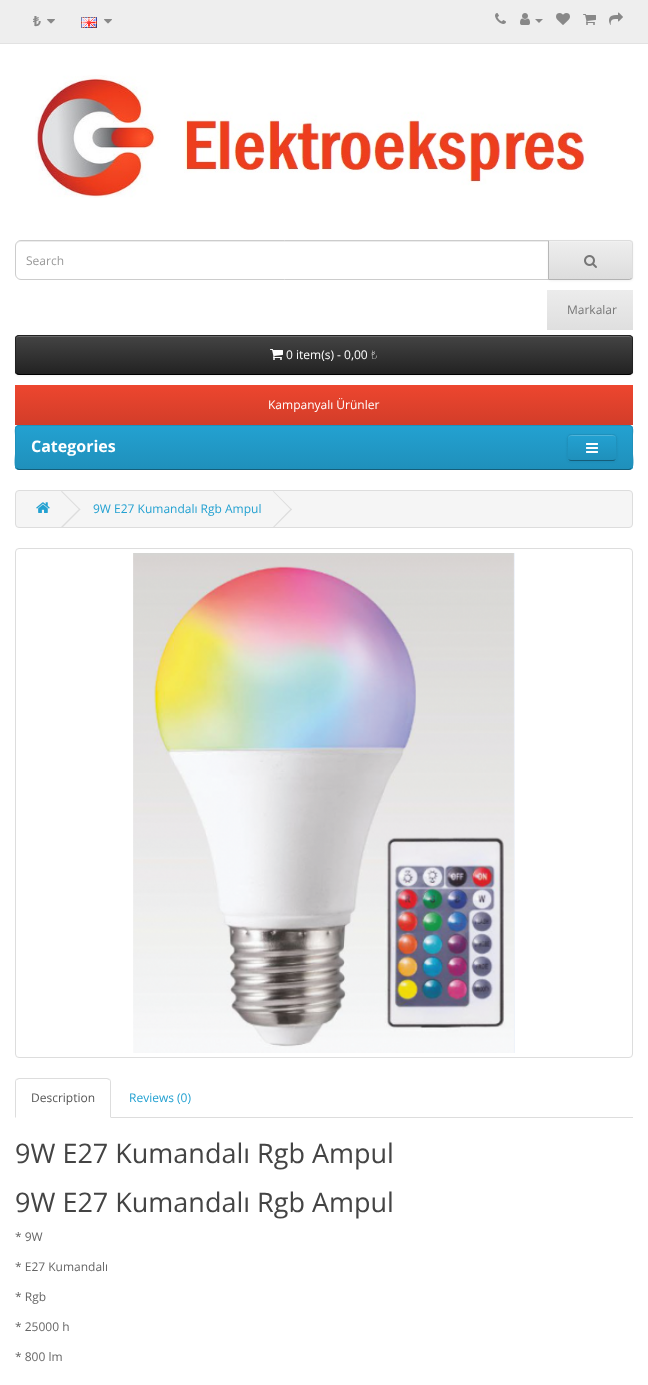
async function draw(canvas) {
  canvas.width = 648
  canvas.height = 1385
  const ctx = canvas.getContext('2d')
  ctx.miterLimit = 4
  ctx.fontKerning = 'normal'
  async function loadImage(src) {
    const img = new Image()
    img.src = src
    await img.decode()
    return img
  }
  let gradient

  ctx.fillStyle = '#fff'
  ctx.fillRect(0, 0, 648, 1385)
  ctx.fillStyle = '#eee'
  ctx.fillRect(0, 0, 648, 43)
  ctx.fillStyle = '#e2e2e2'
  ctx.fillRect(0, 43, 648, 1)
  ctx.font = 'bold 14px Noto Sans'
  ctx.fillStyle = '#888'
  ctx.fillText('₺', 33, 26)
  ctx.drawImage(await loadImage('image0.png'), 47, 19, 8, 5)
  ctx.drawImage(await loadImage('image1.png'), 81, 17, 16, 11)
  ctx.drawImage(await loadImage('image0.png'), 104, 19, 8, 5)
  ctx.drawImage(await loadImage('image2.png'), 495, 13, 11, 11)
  ctx.drawImage(await loadImage('image3.png'), 520, 13, 10, 12)
  ctx.beginPath()
  ctx.moveTo(535, 19)
  ctx.lineTo(543, 19)
  ctx.lineTo(539, 23)
  ctx.closePath()
  ctx.fill()
  ctx.drawImage(await loadImage('image4.png'), 556, 13, 14, 12)
  ctx.drawImage(await loadImage('image5.png'), 583, 14, 13, 11)
  ctx.drawImage(await loadImage('image6.png'), 609, 12, 14, 13)
  ctx.drawImage(await loadImage('image7.png'), 35, 75, 554, 123)
  ctx.fillStyle = '#ececec'
  ctx.beginPath()
  ctx.moveTo(21, 242)
  ctx.lineTo(548, 242)
  ctx.lineTo(548, 241)
  ctx.lineTo(21, 241)
  ctx.bezierCurveTo(18, 241, 16, 244, 16, 247)
  ctx.bezierCurveTo(16, 244, 18, 242, 21, 242)
  ctx.closePath()
  ctx.fill()
  ctx.beginPath()
  ctx.roundRect(15.5, 240.5, 533, 39, [5.5, 0, 0, 5.5])
  ctx.strokeStyle = '#ccc'
  ctx.stroke()
  ctx.font = '12px Open Sans'
  ctx.fillStyle = '#999'
  ctx.fillText('Search', 26, 265)
  ctx.fillStyle = '#0000000d'
  ctx.filter = 'blur(1px)'
  ctx.beginPath()
  ctx.roundRect(548, 241, 85, 40, 4)
  ctx.fill()
  ctx.filter = 'none'
  ctx.fillStyle = '#e7e7e7'
  ctx.beginPath()
  ctx.roundRect(548, 240, 85, 40, [0, 4, 4, 0])
  ctx.fill()
  ctx.save()
  ctx.beginPath()
  ctx.roundRect(548, 240, 85, 40, [0, 4, 4, 0])
  ctx.clip()
  gradient = ctx.createLinearGradient(591, 241, 591, 279)
  gradient.addColorStop(0, '#eee')
  gradient.addColorStop(1, '#ddd')
  ctx.fillStyle = gradient
  ctx.fillRect(549, 241, 84, 38)
  ctx.restore()
  ctx.fillStyle = '#f1f1f1'
  ctx.beginPath()
  ctx.moveTo(549, 242)
  ctx.lineTo(629, 242)
  ctx.bezierCurveTo(631, 242, 632, 243, 632, 245)
  ctx.lineTo(632, 244)
  ctx.bezierCurveTo(632, 242, 631, 241, 629, 241)
  ctx.lineTo(549, 241)
  ctx.closePath()
  ctx.fill()
  ctx.fillStyle = '#ddd'
  ctx.beginPath()
  ctx.moveTo(548, 240)
  ctx.lineTo(549, 241)
  ctx.lineTo(630, 241)
  ctx.lineTo(631, 242)
  ctx.lineTo(632, 241)
  ctx.lineTo(629, 240)
  ctx.closePath()
  ctx.fill()
  ctx.beginPath()
  ctx.moveTo(633, 276)
  ctx.lineTo(633, 244)
  ctx.bezierCurveTo(633, 243, 632.5, 242, 632, 241)
  ctx.lineTo(631, 242)
  ctx.bezierCurveTo(632, 242, 632, 243, 632, 244)
  ctx.lineTo(632, 276)
  ctx.bezierCurveTo(632, 277, 632, 278, 631, 278)
  ctx.lineTo(632, 279)
  ctx.bezierCurveTo(632.5, 278, 633, 277, 633, 276)
  ctx.closePath()
  ctx.fill()
  ctx.fillStyle = '#b3b3b3'
  ctx.beginPath()
  ctx.moveTo(629, 280)
  ctx.lineTo(632, 279)
  ctx.lineTo(631, 278)
  ctx.lineTo(630, 279)
  ctx.lineTo(549, 279)
  ctx.lineTo(548, 280)
  ctx.closePath()
  ctx.fill()
  ctx.fillStyle = '#b7b7b7'
  ctx.beginPath()
  ctx.moveTo(548, 240)
  ctx.lineTo(548, 280)
  ctx.lineTo(549, 279)
  ctx.lineTo(549, 241)
  ctx.closePath()
  ctx.fill()
  ctx.drawImage(await loadImage('image8.png'), 584, 255, 13, 13)
  gradient = ctx.createLinearGradient(590, 290, 590, 330)
  gradient.addColorStop(0, '#ececec')
  gradient.addColorStop(1, '#dfdfdf')
  ctx.fillStyle = gradient
  ctx.fillRect(547, 290, 86, 40)
  ctx.fillStyle = '#777'
  ctx.fillText('Markalar', 567, 314)
  ctx.fillStyle = '#0000000d'
  ctx.filter = 'blur(1px)'
  ctx.beginPath()
  ctx.roundRect(15, 336, 618, 40, 4)
  ctx.fill()
  ctx.filter = 'none'
  ctx.fillStyle = '#363636'
  ctx.beginPath()
  ctx.roundRect(15, 335, 618, 40, 4)
  ctx.fill()
  ctx.save()
  ctx.beginPath()
  ctx.roundRect(15, 335, 618, 40, 4)
  ctx.clip()
  gradient = ctx.createLinearGradient(324, 336, 324, 374)
  gradient.addColorStop(0, '#444')
  gradient.addColorStop(1, '#222')
  ctx.fillStyle = gradient
  ctx.fillRect(15, 336, 618, 38)
  ctx.restore()
  ctx.fillStyle = '#696969'
  ctx.beginPath()
  ctx.moveTo(19, 337)
  ctx.lineTo(629, 337)
  ctx.bezierCurveTo(631, 337, 632, 338, 632, 340)
  ctx.lineTo(632, 339)
  ctx.bezierCurveTo(632, 337, 631, 336, 629, 336)
  ctx.lineTo(19, 336)
  ctx.bezierCurveTo(17, 336, 16, 337, 16, 339)
  ctx.lineTo(16, 340)
  ctx.bezierCurveTo(16, 338, 17, 337, 19, 337)
  ctx.closePath()
  ctx.fill()
  ctx.beginPath()
  ctx.moveTo(631.5, 373.5)
  ctx.lineTo(629, 374.5)
  ctx.lineTo(19, 374.5)
  ctx.lineTo(16.5, 373.5)
  ctx.strokeStyle = '#000'
  ctx.stroke()
  ctx.beginPath()
  ctx.moveTo(16.5, 373.5)
  ctx.bezierCurveTo(16, 373, 15.5, 372, 15.5, 371)
  ctx.lineTo(15.5, 339)
  ctx.bezierCurveTo(15.5, 338, 16, 337, 16.5, 336.5)
  ctx.bezierCurveTo(17, 336, 18, 335.5, 19, 335.5)
  ctx.lineTo(629, 335.5)
  ctx.bezierCurveTo(630, 335.5, 631, 336, 631.5, 336.5)
  ctx.bezierCurveTo(632, 337, 632.5, 338, 632.5, 339)
  ctx.lineTo(632.5, 371)
  ctx.bezierCurveTo(632.5, 372, 632, 373, 631.5, 373.5)
  ctx.strokeStyle = '#222'
  ctx.stroke()
  ctx.drawImage(await loadImage('image9.png'), 270, 349, 13, 11)
  ctx.fillStyle = '#fff'
  ctx.fillText('0 item(s) - 0,00', 286, 359)
  ctx.font = '100 12px Noto Sans'
  ctx.fillText('₺', 371, 359)
  gradient = ctx.createLinearGradient(324, 385, 324, 425)
  gradient.addColorStop(0, '#ed462f')
  gradient.addColorStop(1, '#d23d29')
  ctx.fillStyle = gradient
  ctx.fillRect(15, 385, 618, 40)
  ctx.font = '12px Open Sans'
  ctx.fillStyle = '#fff'
  ctx.fillText('Kampanyalı Ürünler', 268, 409)
  ctx.fillStyle = '#229ac8'
  ctx.beginPath()
  ctx.roundRect(15, 425, 618, 45, 4)
  ctx.fill()
  ctx.save()
  ctx.beginPath()
  ctx.roundRect(15, 425, 618, 45, 4)
  ctx.clip()
  gradient = ctx.createLinearGradient(324, 426, 324, 469)
  gradient.addColorStop(0, '#23a1d1')
  gradient.addColorStop(1, '#1f90bb')
  ctx.fillStyle = gradient
  ctx.fillRect(15, 426, 618, 43)
  ctx.restore()
  ctx.beginPath()
  ctx.moveTo(631.5, 468.5)
  ctx.lineTo(629, 469.5)
  ctx.lineTo(19, 469.5)
  ctx.lineTo(16.5, 468.5)
  ctx.strokeStyle = '#145e7a'
  ctx.stroke()
  ctx.beginPath()
  ctx.moveTo(16.5, 468.5)
  ctx.bezierCurveTo(14, 466, 15.5, 456.5, 15.5, 453.5)
  ctx.lineTo(15.5, 435)
  ctx.bezierCurveTo(15.5, 432.5, 14, 425.5, 19, 425.5)
  ctx.lineTo(629, 425.5)
  ctx.bezierCurveTo(634, 425.5, 632.5, 432.5, 632.5, 435)
  ctx.lineTo(632.5, 453.5)
  ctx.bezierCurveTo(632.5, 456.5, 634, 466, 631.5, 468.5)
  ctx.strokeStyle = '#1f90bb'
  ctx.stroke()
  ctx.font = 'bold 16px Open Sans'
  ctx.fillStyle = '#fff'
  ctx.fillText('Categories', 31, 452)
  ctx.fillStyle = '#0000000d'
  ctx.filter = 'blur(1px)'
  ctx.beginPath()
  ctx.roundRect(567, 435, 50, 27, 4)
  ctx.fill()
  ctx.filter = 'none'
  ctx.fillStyle = '#229ac8'
  ctx.beginPath()
  ctx.roundRect(567, 434, 50, 27, 4)
  ctx.fill()
  ctx.save()
  ctx.beginPath()
  ctx.roundRect(567, 434, 50, 27, 4)
  ctx.clip()
  gradient = ctx.createLinearGradient(592, 435, 592, 460)
  gradient.addColorStop(0, '#23a1d1')
  gradient.addColorStop(1, '#1f90bb')
  ctx.fillStyle = gradient
  ctx.fillRect(567, 435, 50, 25)
  ctx.restore()
  ctx.fillStyle = '#4fb4da'
  ctx.beginPath()
  ctx.moveTo(571, 436)
  ctx.lineTo(613, 436)
  ctx.bezierCurveTo(615, 436, 616, 437, 616, 439)
  ctx.bezierCurveTo(616, 433, 610, 435, 606, 435)
  ctx.lineTo(578, 435)
  ctx.bezierCurveTo(574, 435, 568, 433, 568, 439)
  ctx.bezierCurveTo(568, 437, 569, 436, 571, 436)
  ctx.closePath()
  ctx.fill()
  ctx.beginPath()
  ctx.moveTo(615.5, 459.5)
  ctx.bezierCurveTo(615, 460, 614, 460.5, 613, 460.5)
  ctx.lineTo(571, 460.5)
  ctx.bezierCurveTo(570, 460.5, 569, 460, 568.5, 459.5)
  ctx.strokeStyle = '#145e7a'
  ctx.stroke()
  ctx.beginPath()
  ctx.moveTo(568.5, 459.5)
  ctx.bezierCurveTo(566.5, 457.5, 567.5, 450, 567.5, 447.5)
  ctx.bezierCurveTo(567.5, 434.5, 565.5, 434.5, 578, 434.5)
  ctx.lineTo(606, 434.5)
  ctx.bezierCurveTo(618.5, 434.5, 616.5, 434.5, 616.5, 447.5)
  ctx.bezierCurveTo(616.5, 450, 617.5, 457.5, 615.5, 459.5)
  ctx.strokeStyle = '#1f90bb'
  ctx.stroke()
  ctx.drawImage(await loadImage('image10.png'), 586, 443, 12, 10)
  ctx.fillStyle = '#f5f5f5'
  ctx.beginPath()
  ctx.roundRect(15.5, 490.5, 617, 37, 3.5)
  ctx.fill()
  ctx.strokeStyle = '#ddd'
  ctx.stroke()
  ctx.drawImage(await loadImage('image11.png'), 36, 502, 14, 11)
  ctx.fillStyle = '#ddd'
  ctx.beginPath()
  ctx.moveTo(61, 491.5)
  ctx.lineTo(62, 491)
  ctx.lineTo(80.5, 509.5)
  ctx.lineTo(79.5, 510)
  ctx.closePath()
  ctx.fill()
  ctx.beginPath()
  ctx.moveTo(61, 527)
  ctx.lineTo(79.5, 508.5)
  ctx.lineTo(80.5, 509.5)
  ctx.lineTo(62, 528)
  ctx.closePath()
  ctx.fill()
  ctx.font = '12px Open Sans'
  ctx.fillStyle = '#23a1d1'
  ctx.fillText('9W E27 Kumandalı Rgb Ampul', 93, 513)
  ctx.fillStyle = '#ddd'
  ctx.beginPath()
  ctx.moveTo(273, 491.5)
  ctx.lineTo(273.5, 491)
  ctx.lineTo(292, 509.5)
  ctx.lineTo(291, 510)
  ctx.closePath()
  ctx.fill()
  ctx.beginPath()
  ctx.moveTo(273, 527)
  ctx.lineTo(291, 508.5)
  ctx.lineTo(292, 509.5)
  ctx.lineTo(273.5, 528)
  ctx.closePath()
  ctx.fill()
  ctx.beginPath()
  ctx.roundRect(15.5, 548.5, 617, 509, 3.5)
  ctx.stroke()
  ctx.drawImage(await loadImage('image12.png'), 133, 553, 382, 500)
  ctx.fillRect(111, 1117, 522, 1)
  ctx.beginPath()
  ctx.moveTo(19, 1078)
  ctx.lineTo(16, 1079)
  ctx.lineTo(17, 1080)
  ctx.lineTo(19, 1079)
  ctx.lineTo(107, 1079)
  ctx.lineTo(109, 1080)
  ctx.lineTo(110, 1079)
  ctx.lineTo(107, 1078)
  ctx.closePath()
  ctx.fill()
  ctx.beginPath()
  ctx.moveTo(111, 1118)
  ctx.lineTo(111, 1082)
  ctx.bezierCurveTo(111, 1081, 110.5, 1080, 110, 1079)
  ctx.lineTo(109, 1080)
  ctx.bezierCurveTo(110, 1080, 110, 1081, 110, 1082)
  ctx.lineTo(110, 1117)
  ctx.closePath()
  ctx.fill()
  ctx.beginPath()
  ctx.moveTo(15, 1118)
  ctx.lineTo(16, 1117)
  ctx.lineTo(16, 1082)
  ctx.bezierCurveTo(16, 1081, 16, 1080, 17, 1080)
  ctx.lineTo(16, 1079)
  ctx.bezierCurveTo(15.5, 1080, 15, 1081, 15, 1082)
  ctx.closePath()
  ctx.fill()
  ctx.fillStyle = '#555'
  ctx.fillText('Description', 31, 1102)
  ctx.fillStyle = '#23a1d1'
  ctx.fillText('Reviews (0)', 129, 1102)
  ctx.font = '27px Open Sans'
  ctx.fillStyle = '#444'
  ctx.fillText('9W E27 Kumandalı Rgb Ampul', 15, 1163)
  ctx.fillText('9W E27 Kumandalı Rgb Ampul', 15, 1212)
  ctx.font = '12px Open Sans'
  ctx.fillStyle = '#666'
  ctx.fillText('* 9W', 15, 1241)
  ctx.fillText('* E27 Kumandalı', 15, 1271)
  ctx.fillText('* Rgb', 15, 1301)
  ctx.fillText('* 25000 h', 15, 1331)
  ctx.fillText('* 800 lm', 15, 1361)
}

draw(document.querySelector('canvas'))
